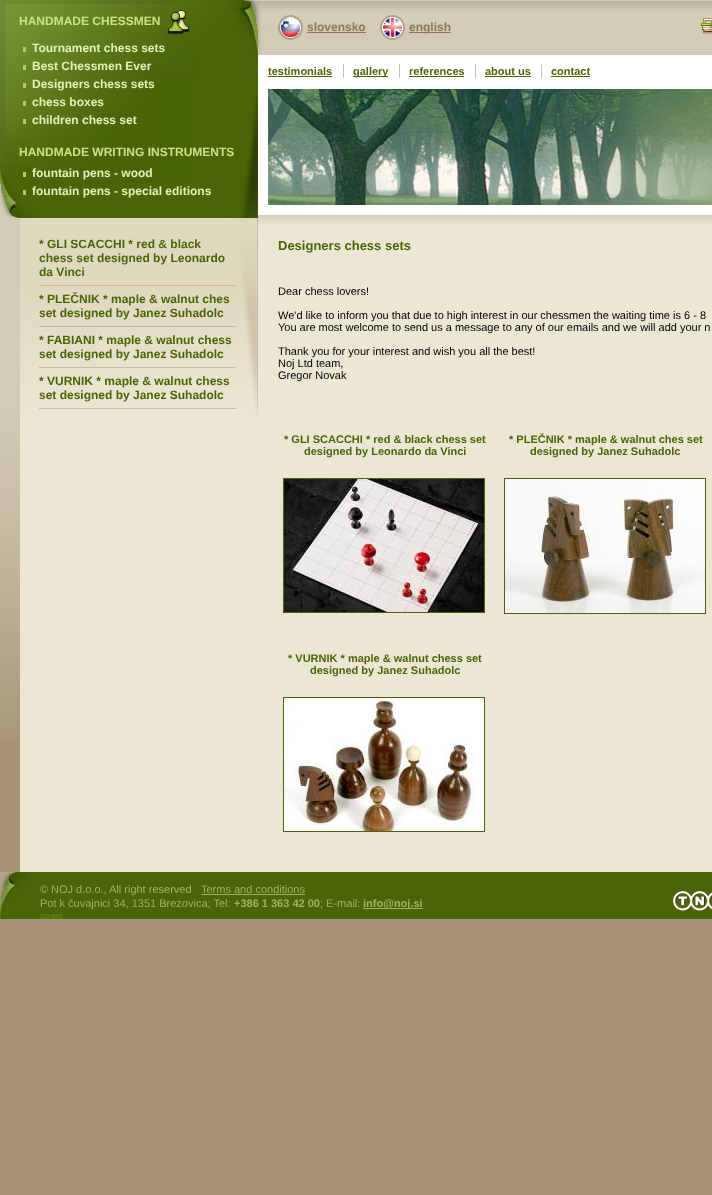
async function draw(canvas) {
  canvas.width = 712
  canvas.height = 1195
  const ctx = canvas.getContext('2d')
  ctx.miterLimit = 4
  ctx.fontKerning = 'normal'
  async function loadImage(src) {
    const img = new Image()
    img.src = src
    await img.decode()
    return img
  }

  ctx.fillStyle = '#a79476'
  ctx.fillRect(0, 0, 712, 1195)
  ctx.drawImage(await loadImage('image0.png'), 0, 218, 20, 520)
  ctx.fillStyle = '#ece7d4'
  ctx.fillRect(20, 225, 692, 647)
  ctx.drawImage(await loadImage('image1.png'), 0, 0, 258, 218)
  ctx.font = 'bold 12px Liberation Sans'
  ctx.fillStyle = '#c9e387'
  ctx.fillText('HANDMADE CHESSMEN', 19, 25)
  ctx.drawImage(await loadImage('image2.png'), 167, 10, 23, 24)
  ctx.fillStyle = '#e2f2b8'
  ctx.fillText('Tournament chess sets', 32, 52)
  ctx.fillStyle = '#b5cb61'
  ctx.fillRect(23, 47, 3, 5)
  ctx.fillStyle = '#e2f2b8'
  ctx.fillText('Best Chessmen Ever', 32, 70)
  ctx.fillStyle = '#b5cb61'
  ctx.fillRect(23, 65, 3, 5)
  ctx.fillStyle = '#e2f2b8'
  ctx.fillText('Designers chess sets', 32, 88)
  ctx.fillStyle = '#b5cb61'
  ctx.fillRect(23, 83, 3, 5)
  ctx.fillStyle = '#e2f2b8'
  ctx.fillText('chess boxes', 32, 106)
  ctx.fillStyle = '#b5cb61'
  ctx.fillRect(23, 101, 3, 5)
  ctx.fillStyle = '#e2f2b8'
  ctx.fillText('children chess set', 32, 124)
  ctx.fillStyle = '#b5cb61'
  ctx.fillRect(23, 119, 3, 5)
  ctx.fillStyle = '#c9e387'
  ctx.fillText('HANDMADE WRITING INSTRUMENTS', 19, 156)
  ctx.drawImage(await loadImage('image3.png'), 0, 166, 35, 52)
  ctx.fillStyle = '#e2f2b8'
  ctx.fillText('fountain pens - wood', 32, 177)
  ctx.fillStyle = '#b5cb61'
  ctx.fillRect(23, 172, 3, 5)
  ctx.fillStyle = '#e2f2b8'
  ctx.fillText('fountain pens - special editions', 32, 195)
  ctx.fillStyle = '#b5cb61'
  ctx.fillRect(23, 190, 3, 5)
  ctx.drawImage(await loadImage('image4.png'), 20, 218, 238, 200)
  ctx.fillStyle = '#c7bba7'
  ctx.fillRect(39, 285, 197, 1)
  ctx.fillStyle = '#4a6507'
  ctx.fillText('* GLI SCACCHI * red & black', 39, 248)
  ctx.fillText('chess set designed by Leonardo', 39, 262)
  ctx.fillText('da Vinci', 39, 276)
  ctx.fillStyle = '#c7bba7'
  ctx.fillRect(39, 326, 197, 1)
  ctx.fillStyle = '#4a6507'
  ctx.fillText('* PLEČNIK * maple & walnut ches', 39, 303)
  ctx.fillText('set designed by Janez Suhadolc', 39, 317)
  ctx.fillStyle = '#c7bba7'
  ctx.fillRect(39, 367, 197, 1)
  ctx.fillStyle = '#4a6507'
  ctx.fillText('* FABIANI * maple & walnut chess', 39, 344)
  ctx.fillText('set designed by Janez Suhadolc', 39, 358)
  ctx.fillStyle = '#c7bba7'
  ctx.fillRect(39, 408, 197, 1)
  ctx.fillStyle = '#4a6507'
  ctx.fillText('* VURNIK * maple & walnut chess', 39, 385)
  ctx.fillText('set designed by Janez Suhadolc', 39, 399)
  ctx.drawImage(await loadImage('image5.png'), 258, 0, 454, 225)
  ctx.drawImage(await loadImage('image6.png'), 278, 15, 25, 25)
  ctx.fillStyle = '#897b5a'
  ctx.fillText('slovensko', 307, 31)
  ctx.fillRect(307, 32, 59, 1)
  ctx.drawImage(await loadImage('image7.png'), 380, 15, 25, 25)
  ctx.fillRect(409, 32, 42, 1)
  ctx.fillText('english', 409, 31)
  ctx.drawImage(await loadImage('image8.png'), 701, 18, 11, 16)
  ctx.drawImage(await loadImage('image9.png'), 268, 89, 444, 116)
  ctx.font = 'bold 11px Liberation Sans'
  ctx.fillStyle = '#4a6507'
  ctx.fillText('testimonials', 268, 75)
  ctx.fillRect(268, 76, 64, 1)
  ctx.fillRect(353, 76, 35, 1)
  ctx.fillText('gallery', 353, 75)
  ctx.fillStyle = '#ccc1ab'
  ctx.fillRect(343, 64, 1, 14)
  ctx.fillStyle = '#4a6507'
  ctx.fillText('references', 409, 75)
  ctx.fillStyle = '#ccc1ab'
  ctx.fillRect(399, 64, 1, 14)
  ctx.fillStyle = '#4a6507'
  ctx.fillRect(409, 76, 55, 1)
  ctx.fillText('about us', 485, 75)
  ctx.fillStyle = '#ccc1ab'
  ctx.fillRect(475, 64, 1, 14)
  ctx.fillStyle = '#4a6507'
  ctx.fillRect(485, 76, 46, 1)
  ctx.fillText('contact', 551, 75)
  ctx.fillStyle = '#ccc1ab'
  ctx.fillRect(541, 64, 1, 14)
  ctx.fillStyle = '#4a6507'
  ctx.fillRect(551, 76, 39, 1)
  ctx.font = 'bold 13px Liberation Sans'
  ctx.fillText('Designers chess sets', 278, 250)
  ctx.font = '11px Liberation Sans'
  ctx.fillStyle = '#000'
  ctx.fillText('Dear chess lovers!', 278, 295)
  ctx.fillText('We\'d like to inform you that due to high interest in our chessmen the waiting time is 6 - 8', 278, 319)
  ctx.fillText('You are most welcome to send us a message to any of our emails and we will add your n', 278, 331)
  ctx.fillText('Thank you for your interest and wish you all the best!', 278, 355)
  ctx.fillText('Noj Ltd team,', 278, 367)
  ctx.fillText('Gregor Novak', 278, 379)
  ctx.font = 'bold 11px Liberation Sans'
  ctx.fillStyle = '#4a6507'
  ctx.fillText('* GLI SCACCHI * red & black chess set', 284, 443)
  ctx.fillText('designed by Leonardo da Vinci', 304, 455)
  ctx.strokeStyle = '#4a6507'
  ctx.strokeRect(283.5, 478.5, 201, 134)
  ctx.drawImage(await loadImage('image10.png'), 284, 479, 200, 133)
  ctx.fillText('* PLEČNIK * maple & walnut ches set', 509, 443)
  ctx.fillText('designed by Janez Suhadolc', 530, 455)
  ctx.strokeRect(504.5, 478.5, 201, 135)
  ctx.drawImage(await loadImage('image11.png'), 505, 479, 200, 134)
  ctx.fillText('* VURNIK * maple & walnut chess set', 288, 662)
  ctx.fillText('designed by Janez Suhadolc', 310, 674)
  ctx.strokeRect(283.5, 697.5, 201, 134)
  ctx.drawImage(await loadImage('image12.png'), 284, 698, 200, 133)
  ctx.fillRect(30, 872, 682, 47)
  ctx.drawImage(await loadImage('image13.png'), 0, 872, 30, 47)
  ctx.font = '11px Liberation Sans'
  ctx.fillStyle = '#9bb365'
  ctx.fillText('©', 40, 893)
  ctx.fillText('NOJ d.o.o.,', 51, 893)
  ctx.fillText('All right reserved', 109, 893)
  ctx.fillText('Terms and conditions', 201, 893)
  ctx.fillRect(201, 894, 104, 1)
  ctx.fillText('Pot k čuvajnici 34, 1351 Brezovica; Tel:', 40, 907)
  ctx.font = 'bold 11px Liberation Sans'
  ctx.fillText('+386 1 363 42 00', 234, 907)
  ctx.font = '11px Liberation Sans'
  ctx.fillText('; E-mail:', 320, 907)
  ctx.fillRect(363, 908, 60, 1)
  ctx.font = 'bold 11px Liberation Sans'
  ctx.fillText('info@noj.si', 363, 907)
  ctx.drawImage(await loadImage('image14.png'), 673, 891, 39, 20)
  ctx.font = '9px Liberation Sans'
  ctx.fillStyle = '#678913'
  ctx.fillText('strani', 40, 919)
}

draw(document.querySelector('canvas'))
